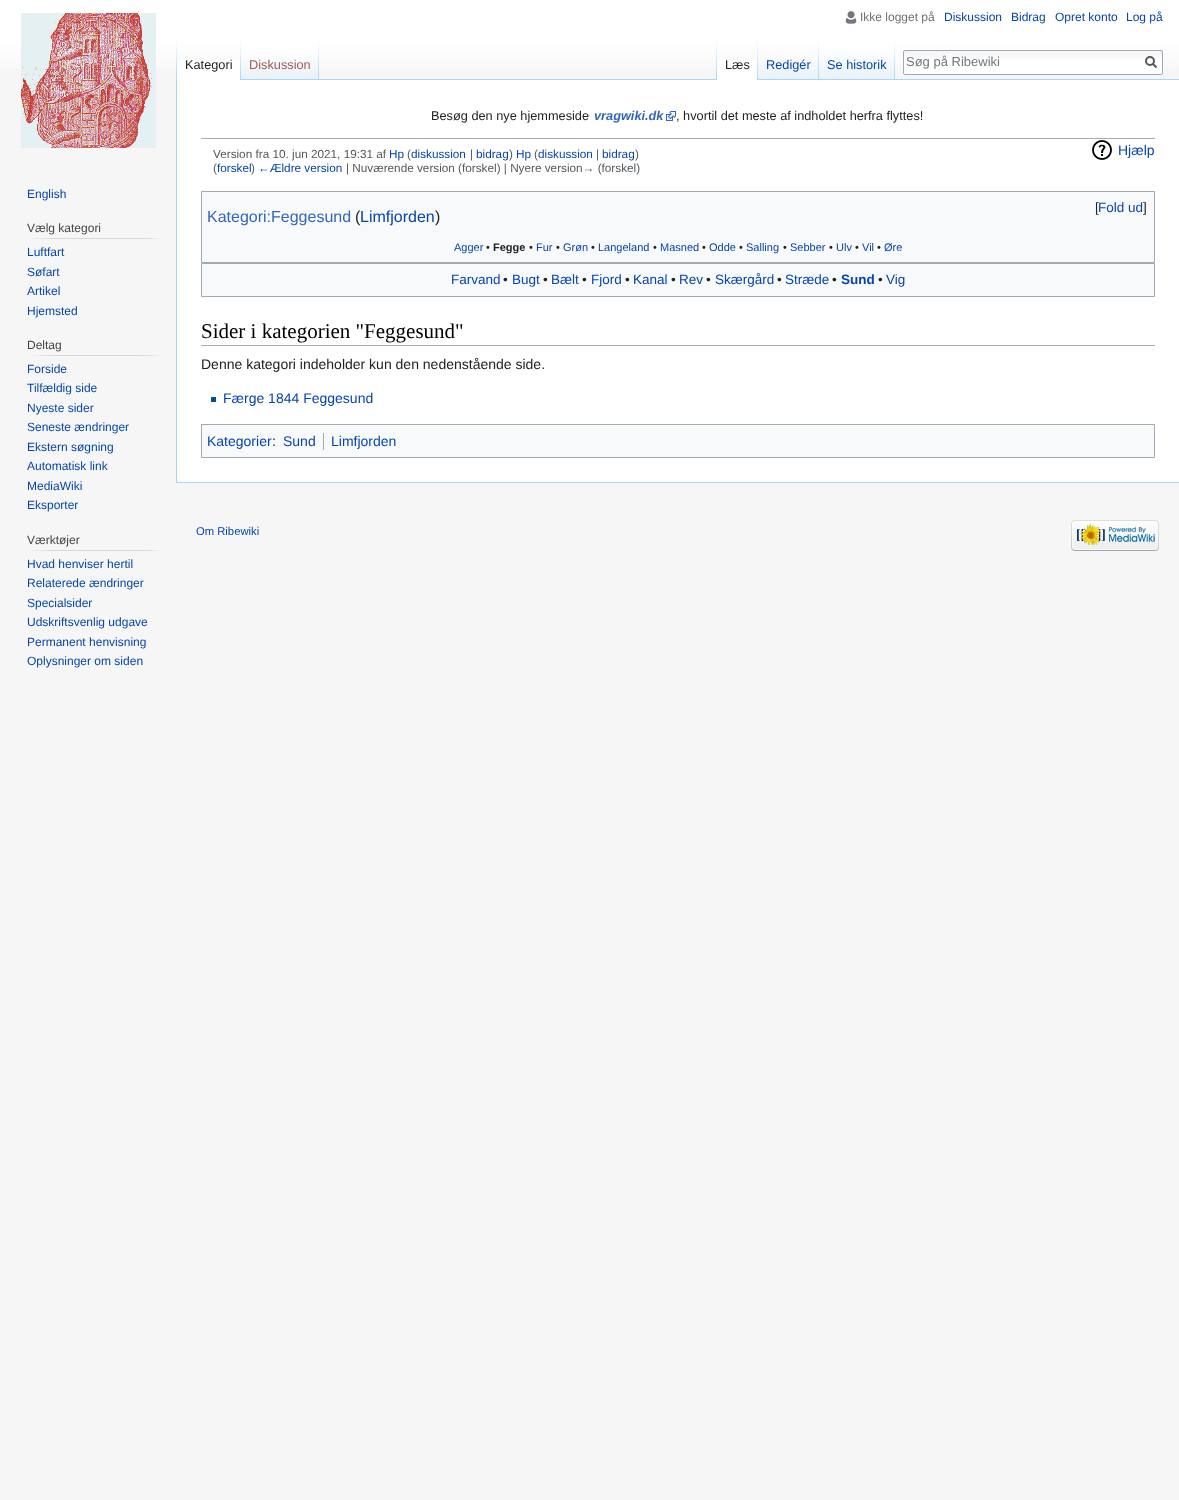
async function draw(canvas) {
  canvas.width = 1179
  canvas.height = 1500
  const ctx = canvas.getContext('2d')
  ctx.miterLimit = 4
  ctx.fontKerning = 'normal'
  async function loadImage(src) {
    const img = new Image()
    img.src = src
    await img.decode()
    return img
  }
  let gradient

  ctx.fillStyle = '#f6f6f6'
  ctx.fillRect(0, 0, 1179, 1500)
  gradient = ctx.createLinearGradient(590, 0, 590, 80)
  gradient.addColorStop(0.5, '#fff')
  gradient.addColorStop(1, '#f6f6f6')
  ctx.fillStyle = gradient
  ctx.fillRect(0, 0, 1179, 69)
  ctx.drawImage(await loadImage('image0.png'), 845, 11, 12, 13)
  ctx.font = '12px Liberation Sans'
  ctx.fillStyle = '#707070'
  ctx.fillText('Ikke logget på', 860, 21)
  ctx.fillStyle = '#0645ad'
  ctx.fillText('Diskussion', 944, 21)
  ctx.fillText('Bidrag', 1011, 21)
  ctx.fillText('Opret konto', 1055, 21)
  ctx.fillText('Log på', 1126, 21)
  ctx.drawImage(await loadImage('image1.png'), 176, 40, 1, 39)
  ctx.fillStyle = '#fff'
  ctx.fillRect(177, 60, 63, 20)
  ctx.drawImage(await loadImage('image2.png'), 240, 40, 1, 40)
  ctx.font = '12.75px Liberation Sans'
  ctx.fillStyle = '#222'
  ctx.fillText('Kategori', 185, 69)
  ctx.drawImage(await loadImage('image3.png'), 241, 40, 77, 39)
  ctx.drawImage(await loadImage('image1.png'), 318, 40, 1, 39)
  ctx.fillStyle = '#a55858'
  ctx.fillText('Diskussion', 249, 69)
  ctx.drawImage(await loadImage('image1.png'), 716, 40, 1, 39)
  ctx.fillStyle = '#a7d7f9'
  ctx.fillRect(241, 79, 938, 1)
  ctx.fillStyle = '#fff'
  ctx.fillRect(717, 60, 40, 20)
  ctx.drawImage(await loadImage('image2.png'), 757, 40, 1, 40)
  ctx.fillStyle = '#222'
  ctx.fillText('Læs', 725, 69)
  ctx.drawImage(await loadImage('image4.png'), 758, 62, 60, 17)
  ctx.drawImage(await loadImage('image1.png'), 818, 40, 1, 39)
  ctx.fillStyle = '#0645ad'
  ctx.fillText('Redigér', 766, 69)
  ctx.drawImage(await loadImage('image5.png'), 819, 40, 75, 39)
  ctx.drawImage(await loadImage('image1.png'), 894, 40, 1, 39)
  ctx.fillText('Se historik', 827, 69)
  ctx.fillStyle = '#fff'
  ctx.beginPath()
  ctx.roundRect(903, 50, 260, 25, 2)
  ctx.fill()
  ctx.drawImage(await loadImage('image6.png'), 903, 51, 260, 8)
  ctx.beginPath()
  ctx.roundRect(903.5, 50.5, 259, 24, 1.5)
  ctx.strokeStyle = '#a2a9b1'
  ctx.stroke()
  ctx.font = '13px Liberation Sans'
  ctx.fillStyle = '#72777d'
  ctx.fillText('Søg på Ribewiki', 906, 66)
  ctx.beginPath()
  ctx.moveTo(1156.5, 67.5)
  ctx.lineTo(1152.5, 63.5)
  ctx.strokeStyle = '#54595d'
  ctx.lineWidth = 2
  ctx.stroke()
  ctx.beginPath()
  ctx.arc(1150, 61, 4, 0, 2 * Math.PI)
  ctx.stroke()
  ctx.drawImage(await loadImage('image7.png'), 21, 13, 135, 135)
  ctx.font = '12px Liberation Sans'
  ctx.fillStyle = '#0645ad'
  ctx.fillText('English', 27, 198)
  ctx.fillStyle = '#444'
  ctx.fillText('Vælg kategori', 27, 232)
  ctx.drawImage(await loadImage('image8.png'), 30, 238, 128, 1)
  ctx.fillStyle = '#0645ad'
  ctx.fillText('Luftfart', 27, 256)
  ctx.fillText('Søfart', 27, 276)
  ctx.fillText('Artikel', 27, 295)
  ctx.fillText('Hjemsted', 27, 315)
  ctx.fillStyle = '#444'
  ctx.fillText('Deltag', 27, 349)
  ctx.drawImage(await loadImage('image8.png'), 30, 355, 128, 1)
  ctx.fillStyle = '#0645ad'
  ctx.fillText('Forside', 27, 373)
  ctx.fillText('Tilfældig side', 27, 392)
  ctx.fillText('Nyeste sider', 27, 412)
  ctx.fillText('Seneste ændringer', 27, 431)
  ctx.fillText('Ekstern søgning', 27, 451)
  ctx.fillText('Automatisk link', 27, 470)
  ctx.fillText('MediaWiki', 27, 490)
  ctx.fillText('Eksporter', 27, 509)
  ctx.fillStyle = '#444'
  ctx.fillText('Værktøjer', 27, 544)
  ctx.drawImage(await loadImage('image8.png'), 30, 550, 128, 1)
  ctx.fillStyle = '#0645ad'
  ctx.fillText('Hvad henviser hertil', 27, 568)
  ctx.fillText('Relaterede ændringer', 27, 587)
  ctx.fillText('Specialsider', 27, 607)
  ctx.fillText('Udskriftsvenlig udgave', 27, 626)
  ctx.fillText('Permanent henvisning', 27, 646)
  ctx.fillText('Oplysninger om siden', 27, 665)
  ctx.fillStyle = '#fff'
  ctx.fillRect(177, 80, 1002, 402)
  ctx.fillStyle = '#a7d7f9'
  ctx.fillRect(176, 482, 1003, 1)
  ctx.fillRect(176, 79, 1, 404)
  ctx.font = '12.75px Liberation Sans'
  ctx.fillStyle = '#222'
  ctx.fillText('Besøg den nye hjemmeside', 431, 120)
  ctx.font = 'italic bold 12.75px Liberation Sans'
  ctx.fillStyle = '#36b'
  ctx.fillText('vragwiki.dk', 594, 120)
  ctx.drawImage(await loadImage('image9.png'), 666, 111, 10, 10)
  ctx.font = '12.75px Liberation Sans'
  ctx.fillStyle = '#222'
  ctx.fillText(', hvortil det meste af indholdet herfra flyttes!', 676, 120)
  ctx.fillStyle = '#aaa'
  ctx.fillRect(201, 138, 954, 1)
  ctx.drawImage(await loadImage('image10.png'), 1092, 140, 20, 20)
  ctx.font = '14px Liberation Sans'
  ctx.fillStyle = '#0645ad'
  ctx.fillText('Hjælp', 1118, 155)
  ctx.font = '11.75px Liberation Sans'
  ctx.fillStyle = '#54595d'
  ctx.fillText('Version fra 10. jun 2021, 19:31 af', 213, 158)
  ctx.fillStyle = '#0645ad'
  ctx.fillText('Hp', 389, 158)
  ctx.fillStyle = '#54595d'
  ctx.fillText('(', 407, 158)
  ctx.fillStyle = '#0645ad'
  ctx.fillText('diskussion', 411, 158)
  ctx.fillStyle = '#54595d'
  ctx.fillText('|', 470, 158)
  ctx.fillStyle = '#0645ad'
  ctx.fillText('bidrag', 476, 158)
  ctx.fillStyle = '#54595d'
  ctx.fillText(')', 509, 158)
  ctx.fillStyle = '#0645ad'
  ctx.fillText('Hp', 516, 158)
  ctx.fillStyle = '#54595d'
  ctx.fillText('(', 534, 158)
  ctx.fillStyle = '#0645ad'
  ctx.fillText('diskussion', 538, 158)
  ctx.fillStyle = '#54595d'
  ctx.fillText('|', 596, 158)
  ctx.fillStyle = '#0645ad'
  ctx.fillText('bidrag', 602, 158)
  ctx.fillStyle = '#54595d'
  ctx.fillText(')', 635, 158)
  ctx.fillText('(', 213, 172)
  ctx.fillStyle = '#0645ad'
  ctx.fillText('forskel', 217, 172)
  ctx.fillStyle = '#54595d'
  ctx.fillText(')', 251, 172)
  ctx.fillStyle = '#0645ad'
  ctx.fillText('←Ældre version', 258, 172)
  ctx.fillStyle = '#54595d'
  ctx.fillText('| Nuværende version (forskel) | Nyere version→ (forskel)', 346, 172)
  ctx.fillStyle = '#f8f9fa'
  ctx.beginPath()
  ctx.rect(201.5, 191.5, 953, 71)
  ctx.fill()
  ctx.strokeStyle = '#a2a9b1'
  ctx.lineWidth = 1
  ctx.stroke()
  ctx.font = '13.5px Liberation Sans'
  ctx.fillStyle = '#222'
  ctx.fillText('[', 1095, 212)
  ctx.fillStyle = '#0645ad'
  ctx.fillText('Fold ud', 1098, 212)
  ctx.fillStyle = '#222'
  ctx.fillText(']', 1143, 212)
  ctx.font = '16px Liberation Sans'
  ctx.fillStyle = '#36b'
  ctx.fillText('Kategori:Feggesund', 207, 222)
  ctx.fillStyle = '#222'
  ctx.fillText('(', 355, 222)
  ctx.fillStyle = '#0645ad'
  ctx.fillText('Limfjorden', 360, 222)
  ctx.fillStyle = '#222'
  ctx.fillText(')', 435, 222)
  ctx.font = '11px Liberation Sans'
  ctx.fillStyle = '#0645ad'
  ctx.fillText('Agger', 454, 251)
  ctx.fillStyle = '#222'
  ctx.fillText('•', 486, 251)
  ctx.font = 'bold 11px Liberation Sans'
  ctx.fillText('Fegge', 493, 251)
  ctx.font = '11px Liberation Sans'
  ctx.fillText('•', 529, 251)
  ctx.fillStyle = '#0645ad'
  ctx.fillText('Fur', 536, 251)
  ctx.fillStyle = '#222'
  ctx.fillText('•', 556, 251)
  ctx.fillStyle = '#0645ad'
  ctx.fillText('Grøn', 563, 251)
  ctx.fillStyle = '#222'
  ctx.fillText('•', 591, 251)
  ctx.fillStyle = '#0645ad'
  ctx.fillText('Langeland', 598, 251)
  ctx.fillStyle = '#222'
  ctx.fillText('•', 653, 251)
  ctx.fillStyle = '#0645ad'
  ctx.fillText('Masned', 660, 251)
  ctx.fillStyle = '#222'
  ctx.fillText('•', 702, 251)
  ctx.fillStyle = '#0645ad'
  ctx.fillText('Odde', 709, 251)
  ctx.fillStyle = '#222'
  ctx.fillText('•', 739, 251)
  ctx.fillStyle = '#0645ad'
  ctx.fillText('Salling', 746, 251)
  ctx.fillStyle = '#222'
  ctx.fillText('•', 783, 251)
  ctx.fillStyle = '#0645ad'
  ctx.fillText('Sebber', 790, 251)
  ctx.fillStyle = '#222'
  ctx.fillText('•', 829, 251)
  ctx.fillStyle = '#0645ad'
  ctx.fillText('Ulv', 836, 251)
  ctx.fillStyle = '#222'
  ctx.fillText('•', 855, 251)
  ctx.fillStyle = '#0645ad'
  ctx.fillText('Vil', 862, 251)
  ctx.fillStyle = '#222'
  ctx.fillText('•', 877, 251)
  ctx.fillStyle = '#0645ad'
  ctx.fillText('Øre', 884, 251)
  ctx.fillStyle = '#f8f9fa'
  ctx.beginPath()
  ctx.rect(201.5, 263.5, 953, 33)
  ctx.fill()
  ctx.stroke()
  ctx.font = '13.5px Liberation Sans'
  ctx.fillStyle = '#0645ad'
  ctx.fillText('Farvand', 451, 284)
  ctx.fillStyle = '#222'
  ctx.fillText('•', 503, 284)
  ctx.fillStyle = '#0645ad'
  ctx.fillText('Bugt', 512, 284)
  ctx.fillStyle = '#222'
  ctx.fillText('•', 543, 284)
  ctx.fillStyle = '#0645ad'
  ctx.fillText('Bælt', 551, 284)
  ctx.fillStyle = '#222'
  ctx.fillText('•', 582, 284)
  ctx.fillStyle = '#0645ad'
  ctx.fillText('Fjord', 591, 284)
  ctx.fillStyle = '#222'
  ctx.fillText('•', 625, 284)
  ctx.fillStyle = '#0645ad'
  ctx.fillText('Kanal', 633, 284)
  ctx.fillStyle = '#222'
  ctx.fillText('•', 671, 284)
  ctx.fillStyle = '#0645ad'
  ctx.fillText('Rev', 679, 284)
  ctx.fillStyle = '#222'
  ctx.fillText('•', 706, 284)
  ctx.fillStyle = '#0645ad'
  ctx.fillText('Skærgård', 715, 284)
  ctx.fillStyle = '#222'
  ctx.fillText('•', 777, 284)
  ctx.fillStyle = '#0645ad'
  ctx.fillText('Stræde', 785, 284)
  ctx.fillStyle = '#222'
  ctx.fillText('•', 832, 284)
  ctx.font = 'bold 13.5px Liberation Sans'
  ctx.fillStyle = '#0645ad'
  ctx.fillText('Sund', 841, 284)
  ctx.font = '13.5px Liberation Sans'
  ctx.fillStyle = '#222'
  ctx.fillText('•', 878, 284)
  ctx.fillStyle = '#0645ad'
  ctx.fillText('Vig', 886, 284)
  ctx.fillStyle = '#aaa'
  ctx.fillRect(201, 345, 954, 1)
  ctx.font = '21px Liberation Serif'
  ctx.fillStyle = '#000'
  ctx.fillText('Sider i kategorien "Feggesund"', 201, 338)
  ctx.font = '14px Liberation Sans'
  ctx.fillStyle = '#222'
  ctx.fillText('Denne kategori indeholder kun den nedenstående side.', 201, 369)
  ctx.fillStyle = '#00528c'
  ctx.fillRect(211, 397, 5, 5)
  ctx.fillStyle = '#0645ad'
  ctx.fillText('Færge 1844 Feggesund', 223, 403)
  ctx.fillStyle = '#f8f9fa'
  ctx.beginPath()
  ctx.rect(201.5, 424.5, 953, 33)
  ctx.fill()
  ctx.stroke()
  ctx.fillStyle = '#0645ad'
  ctx.fillText('Kategorier', 207, 446)
  ctx.fillStyle = '#222'
  ctx.fillText(':', 272, 446)
  ctx.fillStyle = '#0645ad'
  ctx.fillText('Sund', 283, 446)
  ctx.fillStyle = '#a2a9b1'
  ctx.fillRect(323, 433, 1, 17)
  ctx.fillStyle = '#0645ad'
  ctx.fillText('Limfjorden', 331, 446)
  ctx.font = '11.25px Liberation Sans'
  ctx.fillText('Om Ribewiki', 196, 535)
  ctx.drawImage(await loadImage('image11.png'), 1071, 520, 88, 31)
}

draw(document.querySelector('canvas'))
